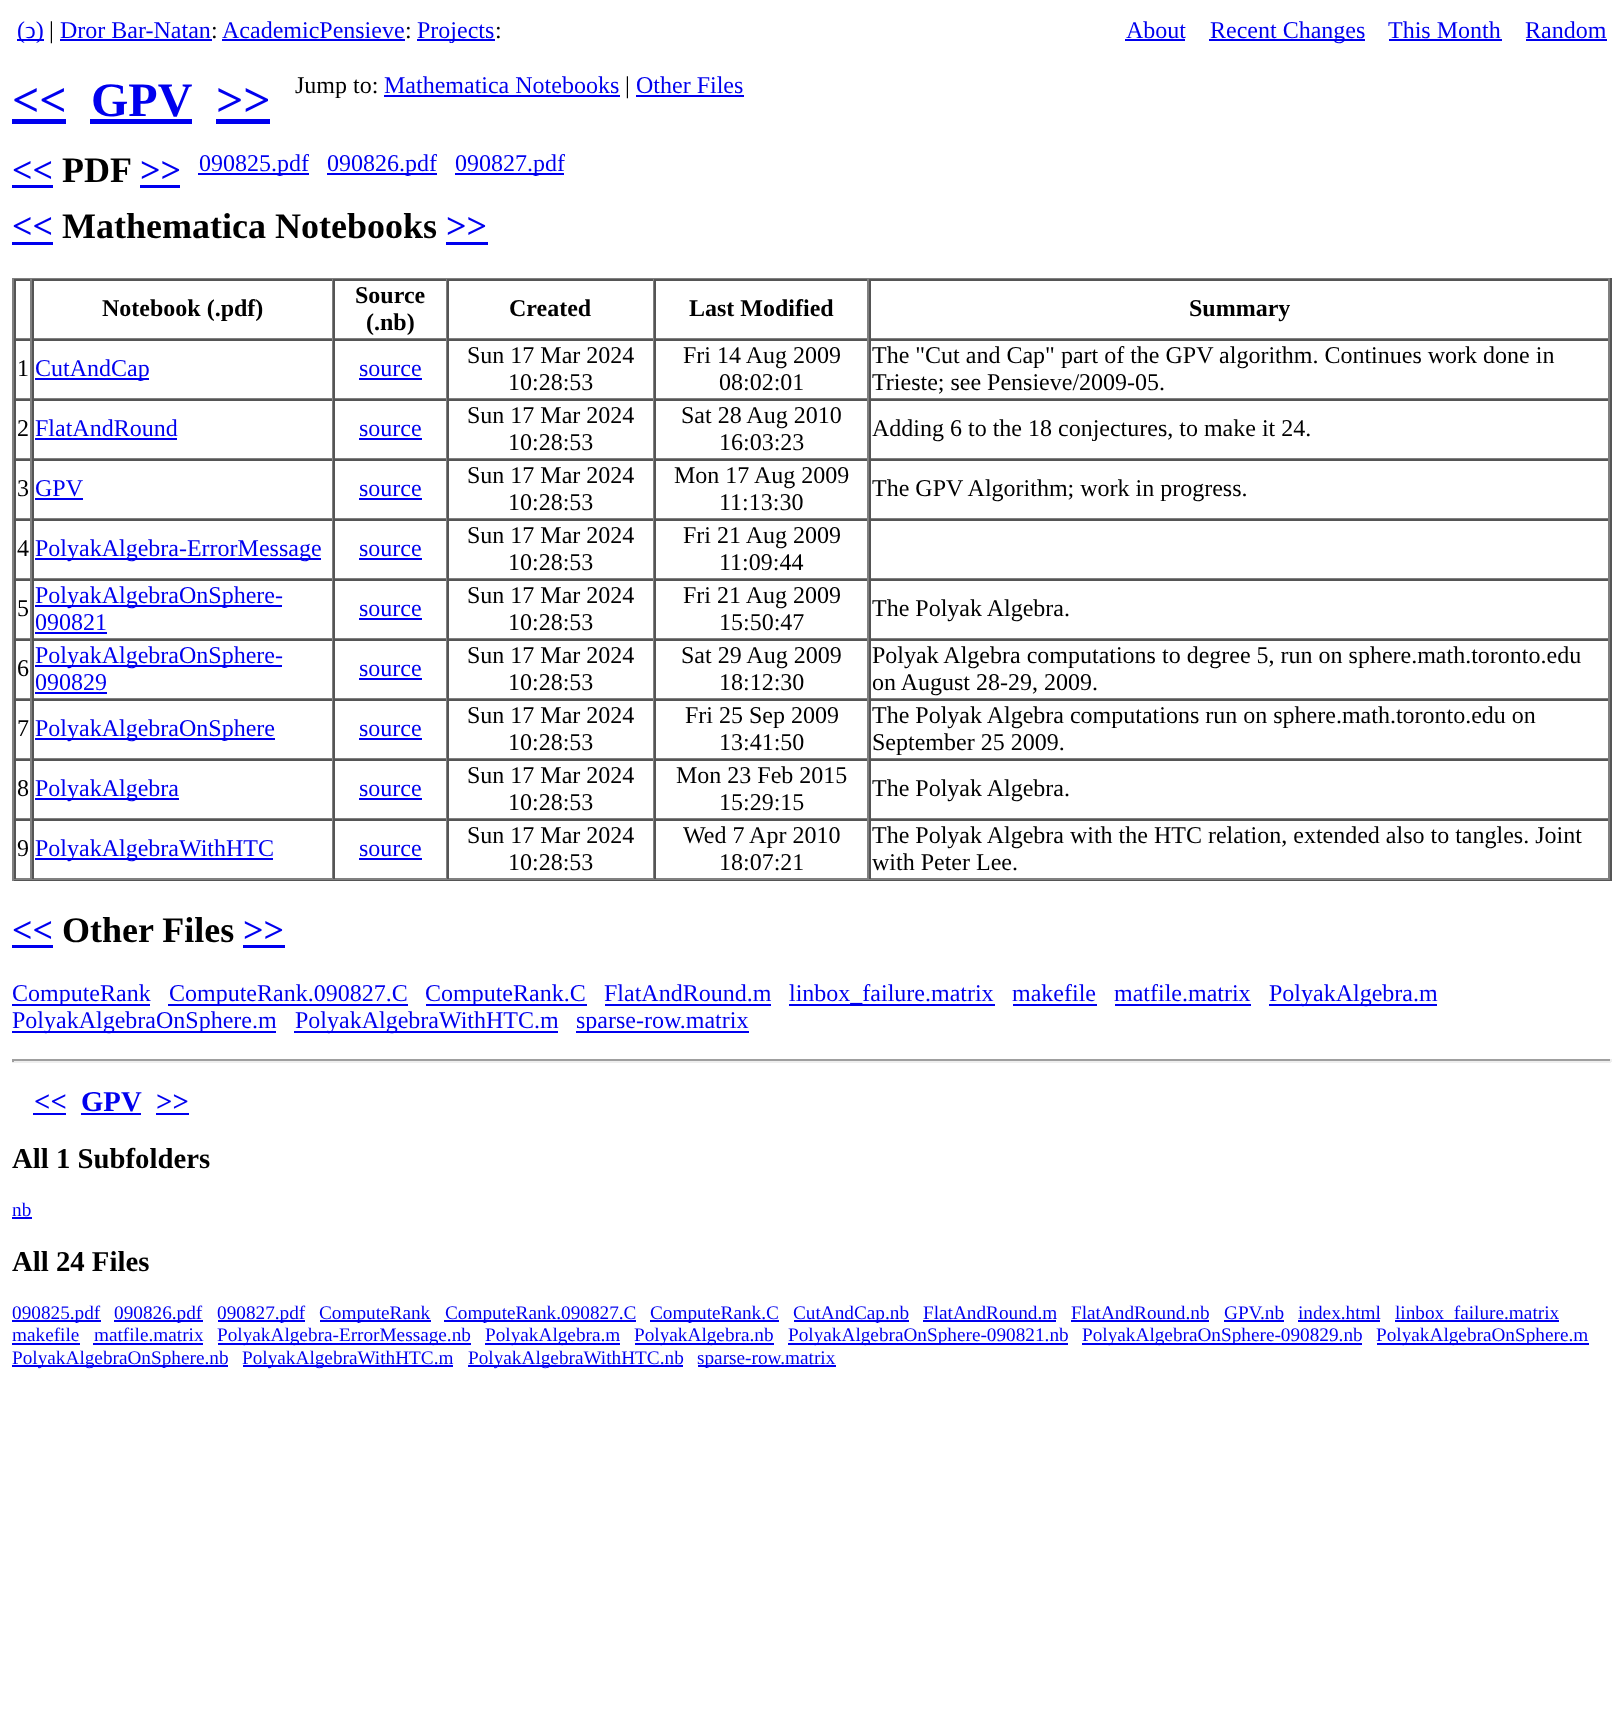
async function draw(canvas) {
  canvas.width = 1623
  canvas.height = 1733
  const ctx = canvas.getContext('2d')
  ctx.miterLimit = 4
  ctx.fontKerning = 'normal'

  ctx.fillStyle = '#fff'
  ctx.fillRect(0, 0, 1623, 1733)
  ctx.fillStyle = '#00e'
  ctx.fillRect(17, 39, 27, 2)
  ctx.font = '24px Liberation Serif'
  ctx.fillText('(ↄ)', 17, 38)
  ctx.fillStyle = '#000'
  ctx.fillText('|', 49, 38)
  ctx.fillStyle = '#00e'
  ctx.fillText('Dror Bar-Natan', 60, 38)
  ctx.fillRect(60, 39, 152, 2)
  ctx.fillStyle = '#000'
  ctx.fillText(':', 211, 38)
  ctx.fillStyle = '#00e'
  ctx.fillText('AcademicPensieve', 222, 38)
  ctx.fillRect(222, 39, 183, 2)
  ctx.fillStyle = '#000'
  ctx.fillText(':', 405, 38)
  ctx.fillStyle = '#00e'
  ctx.fillRect(417, 39, 78, 2)
  ctx.fillText('Projects', 417, 38)
  ctx.fillStyle = '#000'
  ctx.fillText(':', 495, 38)
  ctx.fillStyle = '#00e'
  ctx.fillText('About', 1126, 38)
  ctx.fillRect(1125, 39, 60, 2)
  ctx.fillRect(1209, 39, 156, 2)
  ctx.fillText('Recent Changes', 1210, 38)
  ctx.fillText('This Month', 1388, 38)
  ctx.fillRect(1389, 39, 113, 2)
  ctx.fillText('Random', 1525, 38)
  ctx.fillRect(1526, 39, 81, 2)
  ctx.font = 'bold 48px Liberation Serif'
  ctx.fillText('<<', 12, 116)
  ctx.fillRect(12, 119, 54, 5)
  ctx.fillText('GPV', 91, 116)
  ctx.fillRect(90, 119, 102, 5)
  ctx.fillText('>>', 216, 116)
  ctx.fillRect(216, 119, 54, 5)
  ctx.font = '24px Liberation Serif'
  ctx.fillStyle = '#000'
  ctx.fillText('Jump to:', 295, 93)
  ctx.fillStyle = '#00e'
  ctx.fillText('Mathematica Notebooks', 384, 93)
  ctx.fillRect(384, 95, 236, 2)
  ctx.fillStyle = '#000'
  ctx.fillText('|', 625, 93)
  ctx.fillStyle = '#00e'
  ctx.fillText('Other Files', 636, 93)
  ctx.fillRect(636, 95, 108, 2)
  ctx.font = 'bold 36px Liberation Serif'
  ctx.fillText('<<', 12, 182)
  ctx.fillRect(12, 185, 41, 3)
  ctx.fillStyle = '#000'
  ctx.fillText('PDF', 62, 182)
  ctx.fillStyle = '#00e'
  ctx.fillText('>>', 140, 182)
  ctx.fillRect(140, 185, 40, 3)
  ctx.fillRect(198, 173, 111, 2)
  ctx.font = '24px Liberation Serif'
  ctx.fillText('090825.pdf', 199, 171)
  ctx.fillRect(327, 173, 110, 2)
  ctx.fillText('090826.pdf', 327, 171)
  ctx.fillRect(455, 173, 109, 2)
  ctx.fillText('090827.pdf', 455, 171)
  ctx.font = 'bold 36px Liberation Serif'
  ctx.fillText('<<', 12, 238)
  ctx.fillRect(12, 242, 41, 3)
  ctx.fillStyle = '#000'
  ctx.fillText('Mathematica Notebooks', 62, 238)
  ctx.fillStyle = '#00e'
  ctx.fillText('>>', 446, 238)
  ctx.fillRect(446, 242, 42, 3)
  ctx.fillStyle = '#808080'
  ctx.fillRect(12, 278, 1599, 1)
  ctx.fillStyle = '#555'
  ctx.fillRect(1610, 278, 2, 603)
  ctx.fillRect(12, 879, 1599, 2)
  ctx.fillStyle = '#808080'
  ctx.fillRect(12, 278, 2, 603)
  ctx.fillStyle = '#555'
  ctx.fillRect(14, 279, 1596, 2)
  ctx.fillStyle = '#808080'
  ctx.fillRect(30, 279, 2, 60)
  ctx.fillRect(14, 338, 18, 1)
  ctx.fillStyle = '#555'
  ctx.fillRect(14, 279, 2, 60)
  ctx.fillStyle = '#808080'
  ctx.fillRect(332, 279, 1, 60)
  ctx.fillRect(32, 338, 301, 1)
  ctx.fillStyle = '#555'
  ctx.fillRect(32, 279, 2, 60)
  ctx.font = 'bold 24px Liberation Serif'
  ctx.fillStyle = '#000'
  ctx.fillText('Notebook (.pdf)', 102, 316)
  ctx.fillStyle = '#808080'
  ctx.fillRect(446, 279, 1, 60)
  ctx.fillRect(333, 338, 114, 1)
  ctx.fillStyle = '#555'
  ctx.fillRect(333, 279, 2, 60)
  ctx.fillStyle = '#000'
  ctx.fillText('Source', 355, 303)
  ctx.fillText('(.nb)', 366, 330)
  ctx.fillStyle = '#808080'
  ctx.fillRect(653, 279, 1, 60)
  ctx.fillRect(447, 338, 207, 1)
  ctx.fillStyle = '#555'
  ctx.fillRect(447, 279, 2, 60)
  ctx.fillStyle = '#000'
  ctx.fillText('Created', 509, 316)
  ctx.fillStyle = '#808080'
  ctx.fillRect(867, 279, 2, 60)
  ctx.fillRect(654, 338, 215, 1)
  ctx.fillStyle = '#555'
  ctx.fillRect(654, 279, 2, 60)
  ctx.fillStyle = '#000'
  ctx.fillText('Last Modified', 689, 316)
  ctx.fillStyle = '#808080'
  ctx.fillRect(1608, 279, 2, 60)
  ctx.fillRect(869, 338, 741, 1)
  ctx.fillStyle = '#555'
  ctx.fillRect(869, 279, 2, 60)
  ctx.fillStyle = '#000'
  ctx.fillText('Summary', 1189, 316)
  ctx.fillStyle = '#555'
  ctx.fillRect(14, 339, 1596, 2)
  ctx.fillStyle = '#808080'
  ctx.fillRect(30, 339, 2, 60)
  ctx.fillRect(14, 398, 18, 1)
  ctx.fillStyle = '#555'
  ctx.fillRect(14, 339, 2, 60)
  ctx.font = '24px Liberation Serif'
  ctx.fillStyle = '#000'
  ctx.fillText('1', 17, 376)
  ctx.fillStyle = '#808080'
  ctx.fillRect(332, 339, 1, 60)
  ctx.fillRect(32, 398, 301, 1)
  ctx.fillStyle = '#555'
  ctx.fillRect(32, 339, 2, 60)
  ctx.fillStyle = '#00e'
  ctx.fillRect(35, 378, 114, 2)
  ctx.fillText('CutAndCap', 35, 376)
  ctx.fillStyle = '#808080'
  ctx.fillRect(446, 339, 1, 60)
  ctx.fillRect(333, 398, 114, 1)
  ctx.fillStyle = '#555'
  ctx.fillRect(333, 339, 2, 60)
  ctx.fillStyle = '#00e'
  ctx.fillText('source', 359, 376)
  ctx.fillRect(359, 378, 63, 2)
  ctx.fillStyle = '#808080'
  ctx.fillRect(653, 339, 1, 60)
  ctx.fillRect(447, 398, 207, 1)
  ctx.fillStyle = '#555'
  ctx.fillRect(447, 339, 2, 60)
  ctx.fillStyle = '#000'
  ctx.fillText('Sun 17 Mar 2024', 467, 363)
  ctx.fillText('10:28:53', 508, 390)
  ctx.fillStyle = '#808080'
  ctx.fillRect(867, 339, 2, 60)
  ctx.fillRect(654, 398, 215, 1)
  ctx.fillStyle = '#555'
  ctx.fillRect(654, 339, 2, 60)
  ctx.fillStyle = '#000'
  ctx.fillText('Fri 14 Aug 2009', 683, 363)
  ctx.fillText('08:02:01', 719, 390)
  ctx.fillStyle = '#808080'
  ctx.fillRect(1608, 339, 2, 60)
  ctx.fillRect(869, 398, 741, 1)
  ctx.fillStyle = '#555'
  ctx.fillRect(869, 339, 2, 60)
  ctx.fillStyle = '#000'
  ctx.fillText('The "Cut and Cap" part of the GPV algorithm. Continues work done in', 872, 363)
  ctx.fillText('Trieste; see Pensieve/2009-05.', 872, 390)
  ctx.fillStyle = '#555'
  ctx.fillRect(14, 399, 1596, 2)
  ctx.fillStyle = '#808080'
  ctx.fillRect(30, 399, 2, 60)
  ctx.fillRect(14, 458, 18, 1)
  ctx.fillStyle = '#555'
  ctx.fillRect(14, 399, 2, 60)
  ctx.fillStyle = '#000'
  ctx.fillText('2', 17, 436)
  ctx.fillStyle = '#808080'
  ctx.fillRect(332, 399, 1, 60)
  ctx.fillRect(32, 458, 301, 1)
  ctx.fillStyle = '#555'
  ctx.fillRect(32, 399, 2, 60)
  ctx.fillStyle = '#00e'
  ctx.fillText('FlatAndRound', 35, 436)
  ctx.fillRect(35, 438, 142, 2)
  ctx.fillStyle = '#808080'
  ctx.fillRect(446, 399, 1, 60)
  ctx.fillRect(333, 458, 114, 1)
  ctx.fillStyle = '#555'
  ctx.fillRect(333, 399, 2, 60)
  ctx.fillStyle = '#00e'
  ctx.fillText('source', 359, 436)
  ctx.fillRect(359, 438, 63, 2)
  ctx.fillStyle = '#808080'
  ctx.fillRect(653, 399, 1, 60)
  ctx.fillRect(447, 458, 207, 1)
  ctx.fillStyle = '#555'
  ctx.fillRect(447, 399, 2, 60)
  ctx.fillStyle = '#000'
  ctx.fillText('Sun 17 Mar 2024', 467, 423)
  ctx.fillText('10:28:53', 508, 450)
  ctx.fillStyle = '#808080'
  ctx.fillRect(867, 399, 2, 60)
  ctx.fillRect(654, 458, 215, 1)
  ctx.fillStyle = '#555'
  ctx.fillRect(654, 399, 2, 60)
  ctx.fillStyle = '#000'
  ctx.fillText('Sat 28 Aug 2010', 681, 423)
  ctx.fillText('16:03:23', 719, 450)
  ctx.fillStyle = '#808080'
  ctx.fillRect(1608, 399, 2, 60)
  ctx.fillRect(869, 458, 741, 1)
  ctx.fillStyle = '#555'
  ctx.fillRect(869, 399, 2, 60)
  ctx.fillStyle = '#000'
  ctx.fillText('Adding 6 to the 18 conjectures, to make it 24.', 872, 436)
  ctx.fillStyle = '#555'
  ctx.fillRect(14, 459, 1596, 2)
  ctx.fillStyle = '#808080'
  ctx.fillRect(30, 459, 2, 60)
  ctx.fillRect(14, 518, 18, 1)
  ctx.fillStyle = '#555'
  ctx.fillRect(14, 459, 2, 60)
  ctx.fillStyle = '#000'
  ctx.fillText('3', 17, 496)
  ctx.fillStyle = '#808080'
  ctx.fillRect(332, 459, 1, 60)
  ctx.fillRect(32, 518, 301, 1)
  ctx.fillStyle = '#555'
  ctx.fillRect(32, 459, 2, 60)
  ctx.fillStyle = '#00e'
  ctx.fillText('GPV', 35, 496)
  ctx.fillRect(35, 498, 48, 2)
  ctx.fillStyle = '#808080'
  ctx.fillRect(446, 459, 1, 60)
  ctx.fillRect(333, 518, 114, 1)
  ctx.fillStyle = '#555'
  ctx.fillRect(333, 459, 2, 60)
  ctx.fillStyle = '#00e'
  ctx.fillText('source', 359, 496)
  ctx.fillRect(359, 498, 63, 2)
  ctx.fillStyle = '#808080'
  ctx.fillRect(653, 459, 1, 60)
  ctx.fillRect(447, 518, 207, 1)
  ctx.fillStyle = '#555'
  ctx.fillRect(447, 459, 2, 60)
  ctx.fillStyle = '#000'
  ctx.fillText('Sun 17 Mar 2024', 467, 483)
  ctx.fillText('10:28:53', 508, 510)
  ctx.fillStyle = '#808080'
  ctx.fillRect(867, 459, 2, 60)
  ctx.fillRect(654, 518, 215, 1)
  ctx.fillStyle = '#555'
  ctx.fillRect(654, 459, 2, 60)
  ctx.fillStyle = '#000'
  ctx.fillText('Mon 17 Aug 2009', 674, 483)
  ctx.fillText('11:13:30', 719, 510)
  ctx.fillStyle = '#808080'
  ctx.fillRect(1608, 459, 2, 60)
  ctx.fillRect(869, 518, 741, 1)
  ctx.fillStyle = '#555'
  ctx.fillRect(869, 459, 2, 60)
  ctx.fillStyle = '#000'
  ctx.fillText('The GPV Algorithm; work in progress.', 872, 496)
  ctx.fillStyle = '#555'
  ctx.fillRect(14, 519, 1596, 2)
  ctx.fillStyle = '#808080'
  ctx.fillRect(30, 519, 2, 60)
  ctx.fillRect(14, 578, 18, 1)
  ctx.fillStyle = '#555'
  ctx.fillRect(14, 519, 2, 60)
  ctx.fillStyle = '#000'
  ctx.fillText('4', 17, 556)
  ctx.fillStyle = '#808080'
  ctx.fillRect(332, 519, 1, 60)
  ctx.fillRect(32, 578, 301, 1)
  ctx.fillStyle = '#555'
  ctx.fillRect(32, 519, 2, 60)
  ctx.fillStyle = '#00e'
  ctx.fillRect(35, 558, 286, 2)
  ctx.fillText('PolyakAlgebra-ErrorMessage', 35, 556)
  ctx.fillStyle = '#808080'
  ctx.fillRect(446, 519, 1, 60)
  ctx.fillRect(333, 578, 114, 1)
  ctx.fillStyle = '#555'
  ctx.fillRect(333, 519, 2, 60)
  ctx.fillStyle = '#00e'
  ctx.fillText('source', 359, 556)
  ctx.fillRect(359, 558, 63, 2)
  ctx.fillStyle = '#808080'
  ctx.fillRect(653, 519, 1, 60)
  ctx.fillRect(447, 578, 207, 1)
  ctx.fillStyle = '#555'
  ctx.fillRect(447, 519, 2, 60)
  ctx.fillStyle = '#000'
  ctx.fillText('Sun 17 Mar 2024', 467, 543)
  ctx.fillText('10:28:53', 508, 570)
  ctx.fillStyle = '#808080'
  ctx.fillRect(867, 519, 2, 60)
  ctx.fillRect(654, 578, 215, 1)
  ctx.fillStyle = '#555'
  ctx.fillRect(654, 519, 2, 60)
  ctx.fillStyle = '#000'
  ctx.fillText('Fri 21 Aug 2009', 683, 543)
  ctx.fillText('11:09:44', 719, 570)
  ctx.fillStyle = '#808080'
  ctx.fillRect(1608, 519, 2, 60)
  ctx.fillRect(869, 578, 741, 1)
  ctx.fillStyle = '#555'
  ctx.fillRect(869, 519, 2, 60)
  ctx.fillRect(14, 579, 1596, 2)
  ctx.fillStyle = '#808080'
  ctx.fillRect(30, 579, 2, 60)
  ctx.fillRect(14, 638, 18, 1)
  ctx.fillStyle = '#555'
  ctx.fillRect(14, 579, 2, 60)
  ctx.fillStyle = '#000'
  ctx.fillText('5', 17, 616)
  ctx.fillStyle = '#808080'
  ctx.fillRect(332, 579, 1, 60)
  ctx.fillRect(32, 638, 301, 1)
  ctx.fillStyle = '#555'
  ctx.fillRect(32, 579, 2, 60)
  ctx.fillStyle = '#00e'
  ctx.fillRect(35, 605, 247, 2)
  ctx.fillText('PolyakAlgebraOnSphere-', 35, 603)
  ctx.fillText('090821', 35, 630)
  ctx.fillRect(35, 632, 72, 2)
  ctx.fillStyle = '#808080'
  ctx.fillRect(446, 579, 1, 60)
  ctx.fillRect(333, 638, 114, 1)
  ctx.fillStyle = '#555'
  ctx.fillRect(333, 579, 2, 60)
  ctx.fillStyle = '#00e'
  ctx.fillText('source', 359, 616)
  ctx.fillRect(359, 618, 63, 2)
  ctx.fillStyle = '#808080'
  ctx.fillRect(653, 579, 1, 60)
  ctx.fillRect(447, 638, 207, 1)
  ctx.fillStyle = '#555'
  ctx.fillRect(447, 579, 2, 60)
  ctx.fillStyle = '#000'
  ctx.fillText('Sun 17 Mar 2024', 467, 603)
  ctx.fillText('10:28:53', 508, 630)
  ctx.fillStyle = '#808080'
  ctx.fillRect(867, 579, 2, 60)
  ctx.fillRect(654, 638, 215, 1)
  ctx.fillStyle = '#555'
  ctx.fillRect(654, 579, 2, 60)
  ctx.fillStyle = '#000'
  ctx.fillText('Fri 21 Aug 2009', 683, 603)
  ctx.fillText('15:50:47', 719, 630)
  ctx.fillStyle = '#808080'
  ctx.fillRect(1608, 579, 2, 60)
  ctx.fillRect(869, 638, 741, 1)
  ctx.fillStyle = '#555'
  ctx.fillRect(869, 579, 2, 60)
  ctx.fillStyle = '#000'
  ctx.fillText('The Polyak Algebra.', 872, 616)
  ctx.fillStyle = '#555'
  ctx.fillRect(14, 639, 1596, 2)
  ctx.fillStyle = '#808080'
  ctx.fillRect(30, 639, 2, 60)
  ctx.fillRect(14, 698, 18, 1)
  ctx.fillStyle = '#555'
  ctx.fillRect(14, 639, 2, 60)
  ctx.fillStyle = '#000'
  ctx.fillText('6', 17, 676)
  ctx.fillStyle = '#808080'
  ctx.fillRect(332, 639, 1, 60)
  ctx.fillRect(32, 698, 301, 1)
  ctx.fillStyle = '#555'
  ctx.fillRect(32, 639, 2, 60)
  ctx.fillStyle = '#00e'
  ctx.fillRect(35, 665, 247, 2)
  ctx.fillText('PolyakAlgebraOnSphere-', 35, 663)
  ctx.fillText('090829', 35, 690)
  ctx.fillRect(35, 692, 72, 2)
  ctx.fillStyle = '#808080'
  ctx.fillRect(446, 639, 1, 60)
  ctx.fillRect(333, 698, 114, 1)
  ctx.fillStyle = '#555'
  ctx.fillRect(333, 639, 2, 60)
  ctx.fillStyle = '#00e'
  ctx.fillText('source', 359, 676)
  ctx.fillRect(359, 678, 63, 2)
  ctx.fillStyle = '#808080'
  ctx.fillRect(653, 639, 1, 60)
  ctx.fillRect(447, 698, 207, 1)
  ctx.fillStyle = '#555'
  ctx.fillRect(447, 639, 2, 60)
  ctx.fillStyle = '#000'
  ctx.fillText('Sun 17 Mar 2024', 467, 663)
  ctx.fillText('10:28:53', 508, 690)
  ctx.fillStyle = '#808080'
  ctx.fillRect(867, 639, 2, 60)
  ctx.fillRect(654, 698, 215, 1)
  ctx.fillStyle = '#555'
  ctx.fillRect(654, 639, 2, 60)
  ctx.fillStyle = '#000'
  ctx.fillText('Sat 29 Aug 2009', 681, 663)
  ctx.fillText('18:12:30', 719, 690)
  ctx.fillStyle = '#808080'
  ctx.fillRect(1608, 639, 2, 60)
  ctx.fillRect(869, 698, 741, 1)
  ctx.fillStyle = '#555'
  ctx.fillRect(869, 639, 2, 60)
  ctx.fillStyle = '#000'
  ctx.fillText('Polyak Algebra computations to degree 5, run on sphere.math.toronto.edu', 872, 663)
  ctx.fillText('on August 28-29, 2009.', 872, 690)
  ctx.fillStyle = '#555'
  ctx.fillRect(14, 699, 1596, 2)
  ctx.fillStyle = '#808080'
  ctx.fillRect(30, 699, 2, 60)
  ctx.fillRect(14, 758, 18, 1)
  ctx.fillStyle = '#555'
  ctx.fillRect(14, 699, 2, 60)
  ctx.fillStyle = '#000'
  ctx.fillText('7', 17, 736)
  ctx.fillStyle = '#808080'
  ctx.fillRect(332, 699, 1, 60)
  ctx.fillRect(32, 758, 301, 1)
  ctx.fillStyle = '#555'
  ctx.fillRect(32, 699, 2, 60)
  ctx.fillStyle = '#00e'
  ctx.fillRect(35, 738, 240, 2)
  ctx.fillText('PolyakAlgebraOnSphere', 35, 736)
  ctx.fillStyle = '#808080'
  ctx.fillRect(446, 699, 1, 60)
  ctx.fillRect(333, 758, 114, 1)
  ctx.fillStyle = '#555'
  ctx.fillRect(333, 699, 2, 60)
  ctx.fillStyle = '#00e'
  ctx.fillText('source', 359, 736)
  ctx.fillRect(359, 738, 63, 2)
  ctx.fillStyle = '#808080'
  ctx.fillRect(653, 699, 1, 60)
  ctx.fillRect(447, 758, 207, 1)
  ctx.fillStyle = '#555'
  ctx.fillRect(447, 699, 2, 60)
  ctx.fillStyle = '#000'
  ctx.fillText('Sun 17 Mar 2024', 467, 723)
  ctx.fillText('10:28:53', 508, 750)
  ctx.fillStyle = '#808080'
  ctx.fillRect(867, 699, 2, 60)
  ctx.fillRect(654, 758, 215, 1)
  ctx.fillStyle = '#555'
  ctx.fillRect(654, 699, 2, 60)
  ctx.fillStyle = '#000'
  ctx.fillText('Fri 25 Sep 2009', 685, 723)
  ctx.fillText('13:41:50', 719, 750)
  ctx.fillStyle = '#808080'
  ctx.fillRect(1608, 699, 2, 60)
  ctx.fillRect(869, 758, 741, 1)
  ctx.fillStyle = '#555'
  ctx.fillRect(869, 699, 2, 60)
  ctx.fillStyle = '#000'
  ctx.fillText('The Polyak Algebra computations run on sphere.math.toronto.edu on', 872, 723)
  ctx.fillText('September 25 2009.', 872, 750)
  ctx.fillStyle = '#555'
  ctx.fillRect(14, 759, 1596, 2)
  ctx.fillStyle = '#808080'
  ctx.fillRect(30, 759, 2, 60)
  ctx.fillRect(14, 818, 18, 1)
  ctx.fillStyle = '#555'
  ctx.fillRect(14, 759, 2, 60)
  ctx.fillStyle = '#000'
  ctx.fillText('8', 17, 796)
  ctx.fillStyle = '#808080'
  ctx.fillRect(332, 759, 1, 60)
  ctx.fillRect(32, 818, 301, 1)
  ctx.fillStyle = '#555'
  ctx.fillRect(32, 759, 2, 60)
  ctx.fillStyle = '#00e'
  ctx.fillRect(35, 798, 144, 2)
  ctx.fillText('PolyakAlgebra', 35, 796)
  ctx.fillStyle = '#808080'
  ctx.fillRect(446, 759, 1, 60)
  ctx.fillRect(333, 818, 114, 1)
  ctx.fillStyle = '#555'
  ctx.fillRect(333, 759, 2, 60)
  ctx.fillStyle = '#00e'
  ctx.fillText('source', 359, 796)
  ctx.fillRect(359, 798, 63, 2)
  ctx.fillStyle = '#808080'
  ctx.fillRect(653, 759, 1, 60)
  ctx.fillRect(447, 818, 207, 1)
  ctx.fillStyle = '#555'
  ctx.fillRect(447, 759, 2, 60)
  ctx.fillStyle = '#000'
  ctx.fillText('Sun 17 Mar 2024', 467, 783)
  ctx.fillText('10:28:53', 508, 810)
  ctx.fillStyle = '#808080'
  ctx.fillRect(867, 759, 2, 60)
  ctx.fillRect(654, 818, 215, 1)
  ctx.fillStyle = '#555'
  ctx.fillRect(654, 759, 2, 60)
  ctx.fillStyle = '#000'
  ctx.fillText('Mon 23 Feb 2015', 676, 783)
  ctx.fillText('15:29:15', 719, 810)
  ctx.fillStyle = '#808080'
  ctx.fillRect(1608, 759, 2, 60)
  ctx.fillRect(869, 818, 741, 1)
  ctx.fillStyle = '#555'
  ctx.fillRect(869, 759, 2, 60)
  ctx.fillStyle = '#000'
  ctx.fillText('The Polyak Algebra.', 872, 796)
  ctx.fillStyle = '#555'
  ctx.fillRect(14, 819, 1596, 2)
  ctx.fillStyle = '#808080'
  ctx.fillRect(30, 819, 2, 60)
  ctx.fillRect(14, 878, 18, 2)
  ctx.fillStyle = '#555'
  ctx.fillRect(14, 819, 2, 60)
  ctx.fillStyle = '#000'
  ctx.fillText('9', 17, 856)
  ctx.fillStyle = '#808080'
  ctx.fillRect(332, 819, 1, 60)
  ctx.fillRect(32, 878, 301, 2)
  ctx.fillStyle = '#555'
  ctx.fillRect(32, 819, 2, 60)
  ctx.fillStyle = '#00e'
  ctx.fillRect(35, 858, 238, 2)
  ctx.fillText('PolyakAlgebraWithHTC', 35, 856)
  ctx.fillStyle = '#808080'
  ctx.fillRect(446, 819, 1, 60)
  ctx.fillRect(333, 878, 114, 2)
  ctx.fillStyle = '#555'
  ctx.fillRect(333, 819, 2, 60)
  ctx.fillStyle = '#00e'
  ctx.fillText('source', 359, 856)
  ctx.fillRect(359, 858, 63, 2)
  ctx.fillStyle = '#808080'
  ctx.fillRect(653, 819, 1, 60)
  ctx.fillRect(447, 878, 207, 2)
  ctx.fillStyle = '#555'
  ctx.fillRect(447, 819, 2, 60)
  ctx.fillStyle = '#000'
  ctx.fillText('Sun 17 Mar 2024', 467, 843)
  ctx.fillText('10:28:53', 508, 870)
  ctx.fillStyle = '#808080'
  ctx.fillRect(867, 819, 2, 60)
  ctx.fillRect(654, 878, 215, 2)
  ctx.fillStyle = '#555'
  ctx.fillRect(654, 819, 2, 60)
  ctx.fillStyle = '#000'
  ctx.fillText('Wed 7 Apr 2010', 683, 843)
  ctx.fillText('18:07:21', 719, 870)
  ctx.fillStyle = '#808080'
  ctx.fillRect(1608, 819, 2, 60)
  ctx.fillRect(869, 878, 741, 2)
  ctx.fillStyle = '#555'
  ctx.fillRect(869, 819, 2, 60)
  ctx.fillStyle = '#000'
  ctx.fillText('The Polyak Algebra with the HTC relation, extended also to tangles. Joint', 872, 843)
  ctx.fillText('with Peter Lee.', 872, 870)
  ctx.font = 'bold 36px Liberation Serif'
  ctx.fillStyle = '#00e'
  ctx.fillText('<<', 12, 942)
  ctx.fillRect(12, 945, 41, 3)
  ctx.fillStyle = '#000'
  ctx.fillText('Other Files', 62, 942)
  ctx.fillStyle = '#00e'
  ctx.fillText('>>', 243, 942)
  ctx.fillRect(243, 945, 42, 3)
  ctx.fillRect(12, 1004, 138, 2)
  ctx.font = '24px Liberation Serif'
  ctx.fillText('ComputeRank', 12, 1001)
  ctx.fillRect(168, 1004, 240, 2)
  ctx.fillText('ComputeRank.090827.C', 169, 1001)
  ctx.fillRect(426, 1004, 161, 2)
  ctx.fillText('ComputeRank.C', 425, 1001)
  ctx.fillText('FlatAndRound.m', 604, 1001)
  ctx.fillRect(605, 1004, 166, 2)
  ctx.fillRect(789, 1004, 206, 2)
  ctx.fillText('linbox_failure.matrix', 789, 1001)
  ctx.fillText('makefile', 1012, 1001)
  ctx.fillRect(1013, 1004, 84, 2)
  ctx.fillText('matfile.matrix', 1114, 1001)
  ctx.fillRect(1115, 1004, 136, 2)
  ctx.fillRect(1269, 1004, 168, 2)
  ctx.fillText('PolyakAlgebra.m', 1269, 1001)
  ctx.fillRect(12, 1031, 264, 2)
  ctx.fillText('PolyakAlgebraOnSphere.m', 12, 1028)
  ctx.fillRect(294, 1031, 264, 2)
  ctx.fillText('PolyakAlgebraWithHTC.m', 295, 1028)
  ctx.fillRect(576, 1031, 173, 2)
  ctx.fillText('sparse-row.matrix', 576, 1028)
  ctx.fillStyle = '#9f9f9f'
  ctx.fillRect(12, 1059, 1599, 2)
  ctx.fillStyle = '#eee'
  ctx.fillRect(1610, 1059, 2, 3)
  ctx.fillRect(12, 1061, 1599, 2)
  ctx.fillStyle = '#9f9f9f'
  ctx.fillRect(12, 1059, 2, 3)
  ctx.font = 'bold 28.75px Liberation Serif'
  ctx.fillStyle = '#00e'
  ctx.fillText('<<', 34, 1111)
  ctx.fillRect(33, 1113, 33, 2)
  ctx.fillText('GPV', 81, 1111)
  ctx.fillRect(81, 1113, 60, 2)
  ctx.fillText('>>', 156, 1111)
  ctx.fillRect(156, 1113, 33, 2)
  ctx.fillStyle = '#000'
  ctx.fillText('All 1 Subfolders', 12, 1168)
  ctx.font = '19.25px Liberation Serif'
  ctx.fillStyle = '#00e'
  ctx.fillText('nb', 12, 1216)
  ctx.fillRect(12, 1217, 20, 2)
  ctx.font = 'bold 28.75px Liberation Serif'
  ctx.fillStyle = '#000'
  ctx.fillText('All 24 Files', 12, 1271)
  ctx.fillStyle = '#00e'
  ctx.fillRect(12, 1320, 89, 2)
  ctx.font = '19.25px Liberation Serif'
  ctx.fillText('090825.pdf', 12, 1319)
  ctx.fillRect(114, 1320, 89, 2)
  ctx.fillText('090826.pdf', 114, 1319)
  ctx.fillRect(218, 1320, 87, 2)
  ctx.fillText('090827.pdf', 217, 1319)
  ctx.fillRect(320, 1320, 111, 2)
  ctx.fillText('ComputeRank', 319, 1319)
  ctx.fillRect(444, 1320, 192, 2)
  ctx.fillText('ComputeRank.090827.C', 445, 1319)
  ctx.fillRect(650, 1320, 129, 2)
  ctx.fillText('ComputeRank.C', 650, 1319)
  ctx.fillRect(794, 1320, 115, 2)
  ctx.fillText('CutAndCap.nb', 793, 1319)
  ctx.fillText('FlatAndRound.m', 923, 1319)
  ctx.fillRect(923, 1320, 133, 2)
  ctx.fillText('FlatAndRound.nb', 1071, 1319)
  ctx.fillRect(1071, 1320, 138, 2)
  ctx.fillText('GPV.nb', 1224, 1319)
  ctx.fillRect(1224, 1320, 60, 2)
  ctx.fillText('index.html', 1298, 1319)
  ctx.fillRect(1298, 1320, 82, 2)
  ctx.fillRect(1395, 1320, 164, 2)
  ctx.fillText('linbox_failure.matrix', 1395, 1319)
  ctx.fillText('makefile', 12, 1341)
  ctx.fillRect(12, 1343, 68, 2)
  ctx.fillText('matfile.matrix', 94, 1341)
  ctx.fillRect(93, 1343, 110, 2)
  ctx.fillRect(218, 1343, 253, 2)
  ctx.fillText('PolyakAlgebra-ErrorMessage.nb', 217, 1341)
  ctx.fillRect(485, 1343, 135, 2)
  ctx.fillText('PolyakAlgebra.m', 485, 1341)
  ctx.fillRect(635, 1343, 139, 2)
  ctx.fillText('PolyakAlgebra.nb', 634, 1341)
  ctx.fillRect(788, 1343, 280, 2)
  ctx.fillText('PolyakAlgebraOnSphere-090821.nb', 788, 1341)
  ctx.fillRect(1082, 1343, 280, 2)
  ctx.fillText('PolyakAlgebraOnSphere-090829.nb', 1082, 1341)
  ctx.fillRect(1377, 1343, 212, 2)
  ctx.fillText('PolyakAlgebraOnSphere.m', 1376, 1341)
  ctx.fillRect(12, 1365, 216, 2)
  ctx.fillText('PolyakAlgebraOnSphere.nb', 12, 1364)
  ctx.fillRect(243, 1365, 210, 2)
  ctx.fillText('PolyakAlgebraWithHTC.m', 242, 1364)
  ctx.fillRect(468, 1365, 215, 2)
  ctx.fillText('PolyakAlgebraWithHTC.nb', 468, 1364)
  ctx.fillRect(698, 1365, 138, 2)
  ctx.fillText('sparse-row.matrix', 697, 1364)
}

draw(document.querySelector('canvas'))
